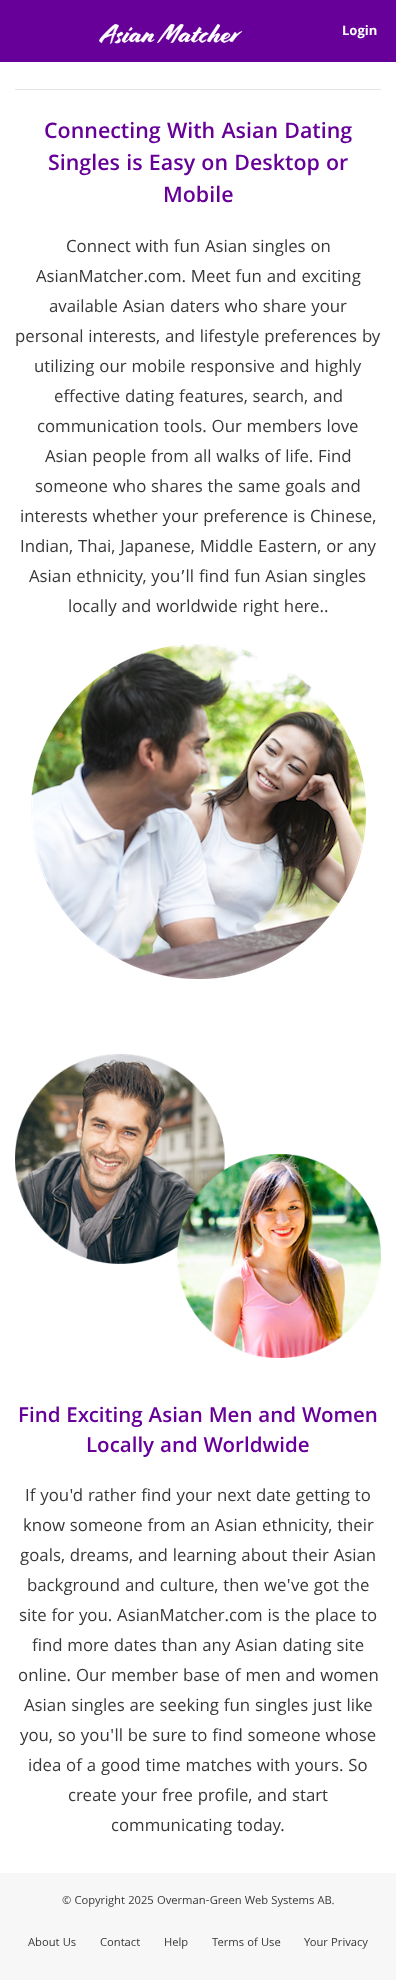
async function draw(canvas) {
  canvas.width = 396
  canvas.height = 1980
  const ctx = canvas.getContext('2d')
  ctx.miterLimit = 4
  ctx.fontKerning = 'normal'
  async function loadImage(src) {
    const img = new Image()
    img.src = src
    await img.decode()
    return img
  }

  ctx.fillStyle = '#fff'
  ctx.fillRect(0, 0, 396, 1980)
  ctx.fillStyle = '#609'
  ctx.fillRect(0, 0, 396, 62)
  ctx.drawImage(await loadImage('image0.png'), 99, 24, 144, 20)
  ctx.font = 'bold 14px Khula'
  ctx.fillStyle = '#fff'
  ctx.fillText('Login', 342, 35)
  ctx.fillStyle = '#e4e4e4'
  ctx.fillRect(15, 89, 366, 1)
  ctx.font = '600 23px Khula'
  ctx.fillStyle = '#609'
  ctx.fillText('Connecting With Asian Dating', 44, 138)
  ctx.fillText('Singles is Easy on Desktop or', 48, 170)
  ctx.fillText('Mobile', 163, 202)
  ctx.font = '18px Khula'
  ctx.fillStyle = '#383838'
  ctx.fillText('Connect with fun Asian singles on', 66, 252)
  ctx.fillText('AsianMatcher.com. Meet fun and exciting', 36, 282)
  ctx.fillText('available Asian daters who share your', 49, 312)
  ctx.fillText('personal interests, and lifestyle preferences by', 15, 342)
  ctx.fillText('utilizing our mobile responsive and highly', 34, 372)
  ctx.fillText('effective dating features, search, and', 54, 402)
  ctx.fillText('communication tools. Our members love', 37, 432)
  ctx.fillText('Asian people from all walks of life. Find', 45, 462)
  ctx.fillText('someone who shares the same goals and', 35, 492)
  ctx.fillText('interests whether your preference is Chinese,', 20, 522)
  ctx.fillText('Indian, Thai, Japanese, Middle Eastern, or any', 20, 552)
  ctx.fillText('Asian ethnicity, you’ll find fun Asian singles', 29, 582)
  ctx.fillText('locally and worldwide right here..', 68, 612)
  ctx.drawImage(await loadImage('image1.png'), 31, 644, 335, 335)
  ctx.drawImage(await loadImage('image2.png'), 15, 1054, 366, 304)
  ctx.font = '600 22px Khula'
  ctx.fillStyle = '#609'
  ctx.fillText('Find Exciting Asian Men and Women', 18, 1422)
  ctx.fillText('Locally and Worldwide', 86, 1452)
  ctx.font = '18px Khula'
  ctx.fillStyle = '#383838'
  ctx.fillText('If you\'d rather find your next date getting to', 25, 1501)
  ctx.fillText('know someone from an Asian ethnicity, their', 23, 1531)
  ctx.fillText('goals, dreams, and learning about their Asian', 20, 1561)
  ctx.fillText('background and culture, then we\'ve got the', 27, 1591)
  ctx.fillText('site for you. AsianMatcher.com is the place to', 19, 1621)
  ctx.fillText('find more dates than any Asian dating site', 32, 1651)
  ctx.fillText('online. Our member base of men and women', 18, 1681)
  ctx.fillText('Asian singles are seeking fun singles just like', 24, 1711)
  ctx.fillText('you, so you\'ll be sure to find someone whose', 20, 1741)
  ctx.fillText('idea of a good time matches with yours. So', 28, 1771)
  ctx.fillText('create your free profile, and start', 68, 1801)
  ctx.fillText('communicating today.', 111, 1831)
  ctx.fillStyle = '#f7f7f7'
  ctx.fillRect(0, 1873, 396, 107)
  ctx.font = '12px Khula'
  ctx.fillStyle = '#383838'
  ctx.fillText('© Copyright 2025 Overman-Green Web Systems AB.', 62, 1904)
  ctx.fillText('About Us', 28, 1946)
  ctx.fillText('Contact', 100, 1946)
  ctx.fillText('Help', 164, 1946)
  ctx.fillText('Terms of Use', 212, 1946)
  ctx.fillText('Your Privacy', 304, 1946)
}

draw(document.querySelector('canvas'))
